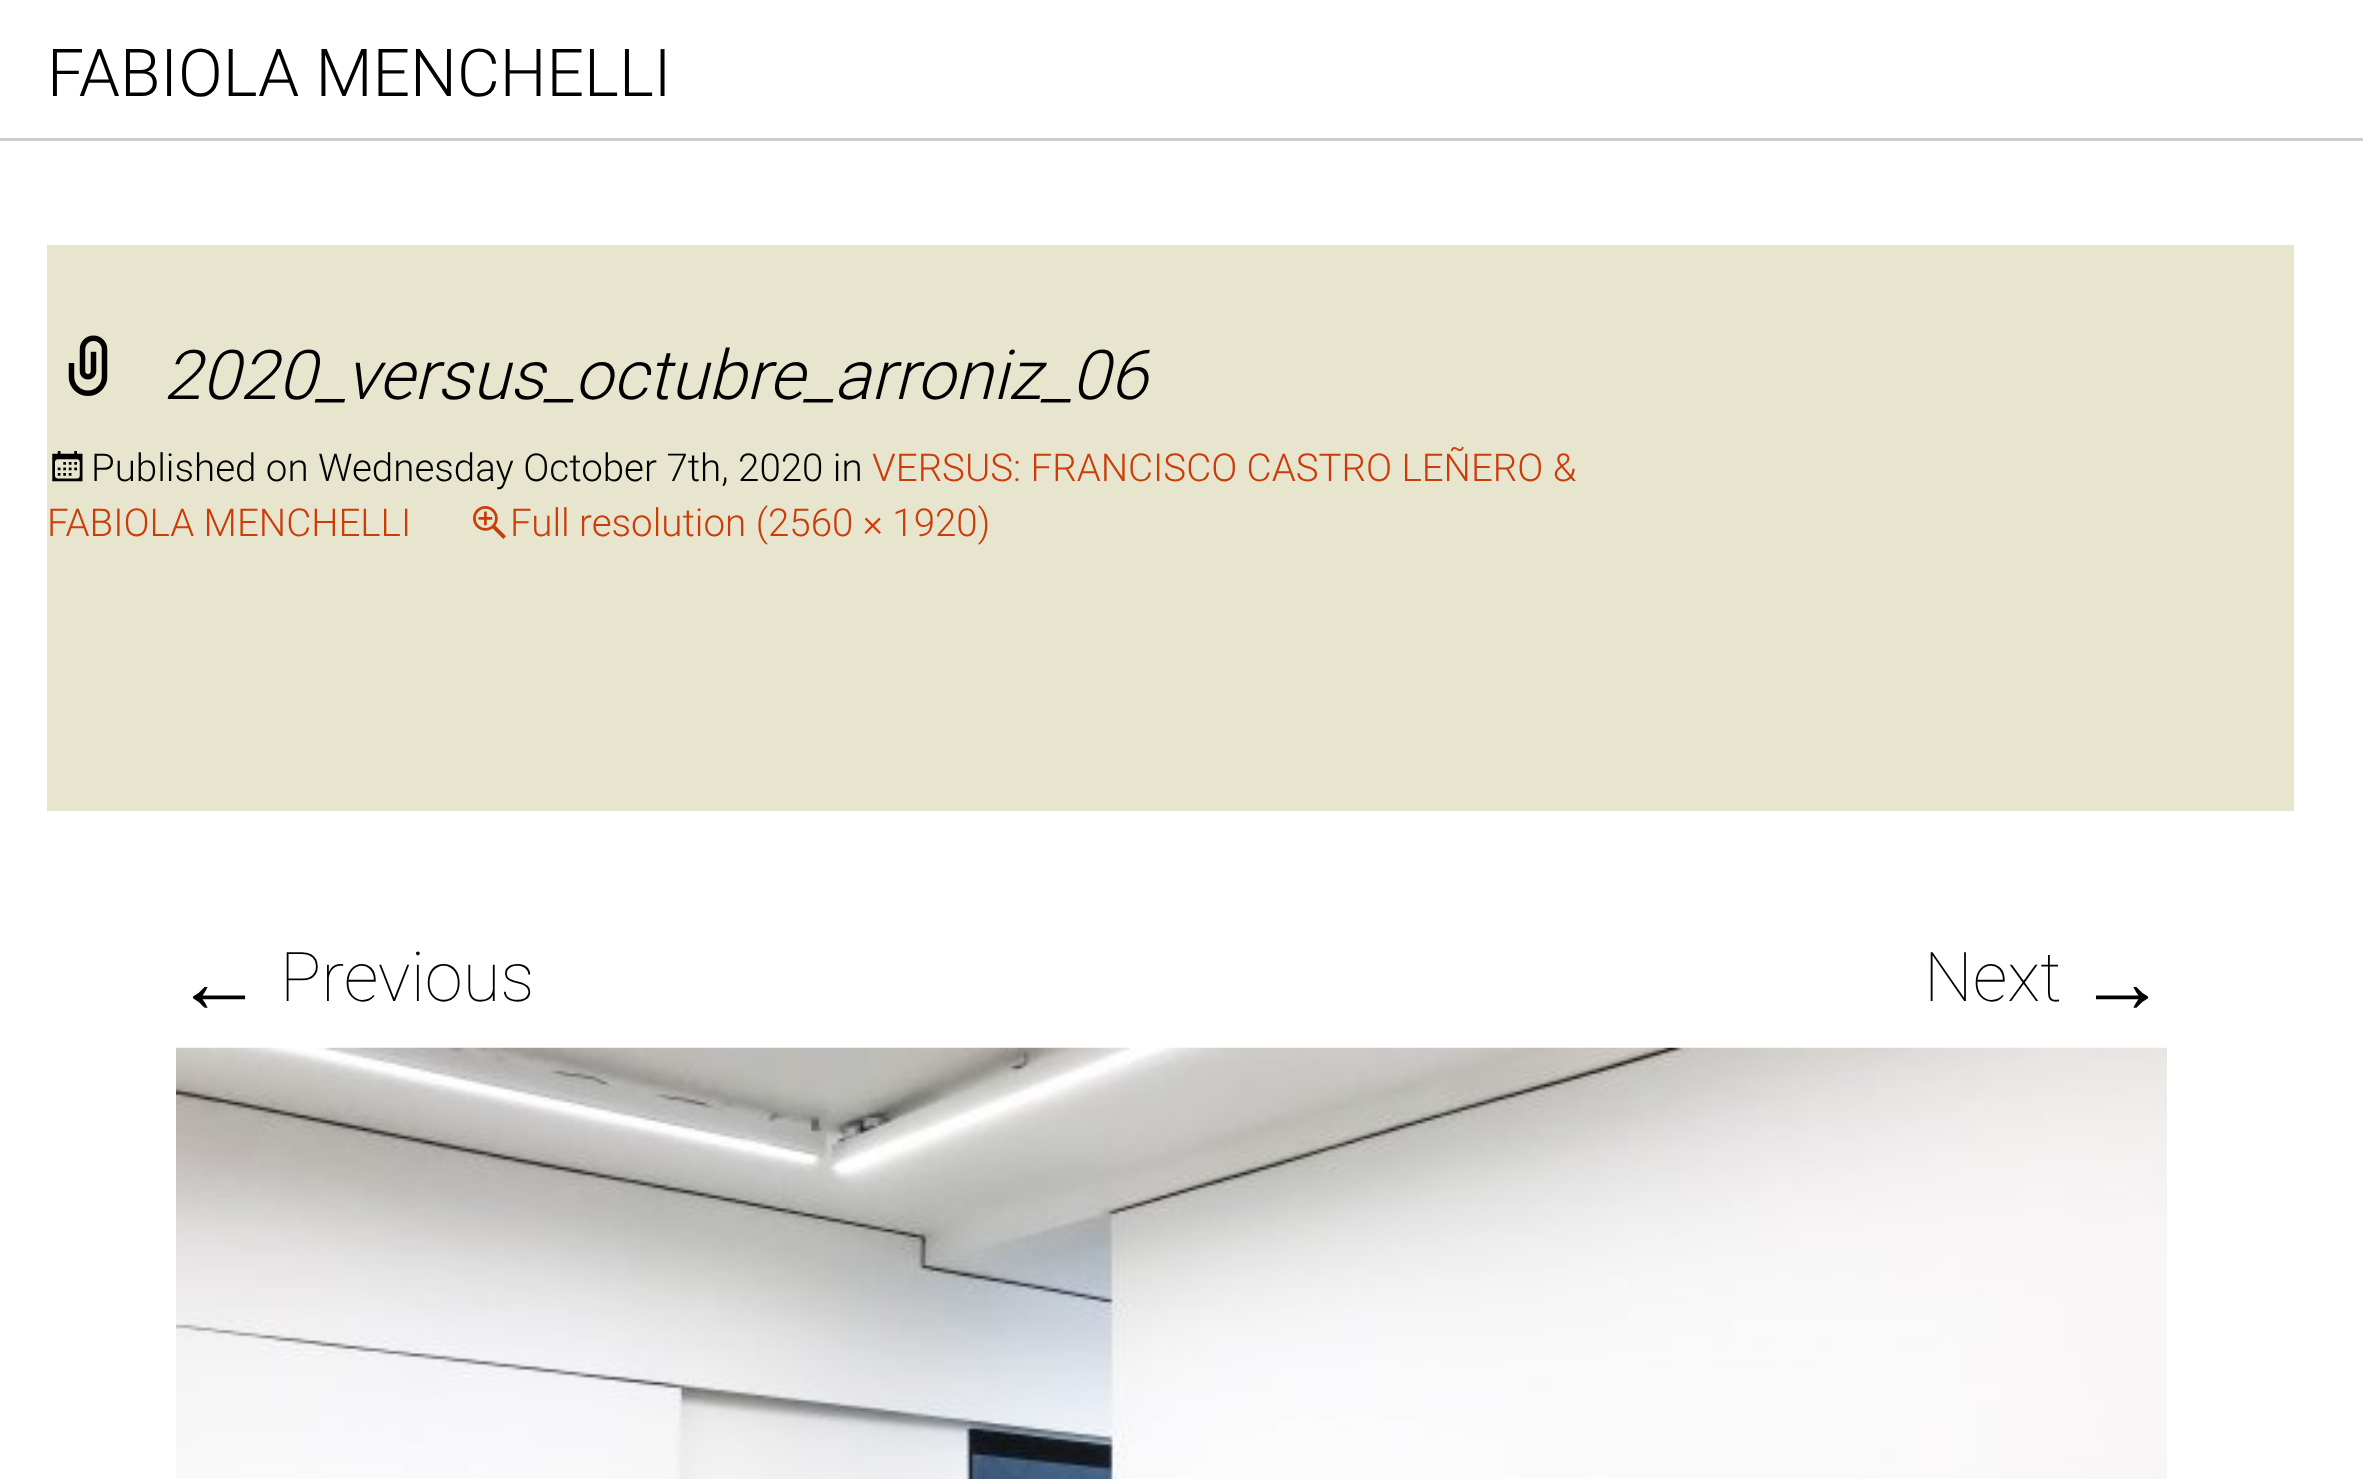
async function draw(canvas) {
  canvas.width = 2363
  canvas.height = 1479
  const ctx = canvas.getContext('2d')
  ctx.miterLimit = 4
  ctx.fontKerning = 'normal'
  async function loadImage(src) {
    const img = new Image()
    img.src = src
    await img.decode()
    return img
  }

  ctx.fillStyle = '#fff'
  ctx.fillRect(0, 0, 2363, 1479)
  ctx.fillStyle = '#ccc'
  ctx.fillRect(0, 138, 2363, 3)
  ctx.font = '300 66px Roboto'
  ctx.fillStyle = '#000'
  ctx.fillText('FABIOLA MENCHELLI', 47, 96)
  ctx.fillStyle = '#e8e5ce'
  ctx.fillRect(47, 245, 2247, 566)
  ctx.drawImage(await loadImage('image0.png'), 68, 335, 40, 61)
  ctx.font = 'italic 300 68.75px Roboto'
  ctx.fillStyle = '#000'
  ctx.fillText('2020_versus_octubre_arroniz_06', 163, 399)
  ctx.drawImage(await loadImage('image1.png'), 52, 451, 31, 31)
  ctx.font = '300 38.5px Roboto'
  ctx.fillText('Published on Wednesday October 7th, 2020 in', 91, 481)
  ctx.fillStyle = '#ca3c08'
  ctx.fillText('VERSUS: FRANCISCO CASTRO LEÑERO &', 872, 481)
  ctx.fillText('FABIOLA MENCHELLI', 47, 536)
  ctx.drawImage(await loadImage('image2.png'), 473, 506, 33, 33)
  ctx.fillText('Full resolution (2560 × 1920)', 510, 536)
  ctx.font = '88px Liberation Sans'
  ctx.fillStyle = '#000'
  ctx.fillText('←', 175, 1012)
  ctx.font = '100 68.75px Roboto'
  ctx.fillText('Previous', 280, 1001)
  ctx.fillText('Next', 1924, 1001)
  ctx.font = '88px Liberation Sans'
  ctx.fillText('→', 2078, 1012)
  ctx.drawImage(await loadImage('image3.png'), 176, 1047, 1991, 432)
}

draw(document.querySelector('canvas'))
